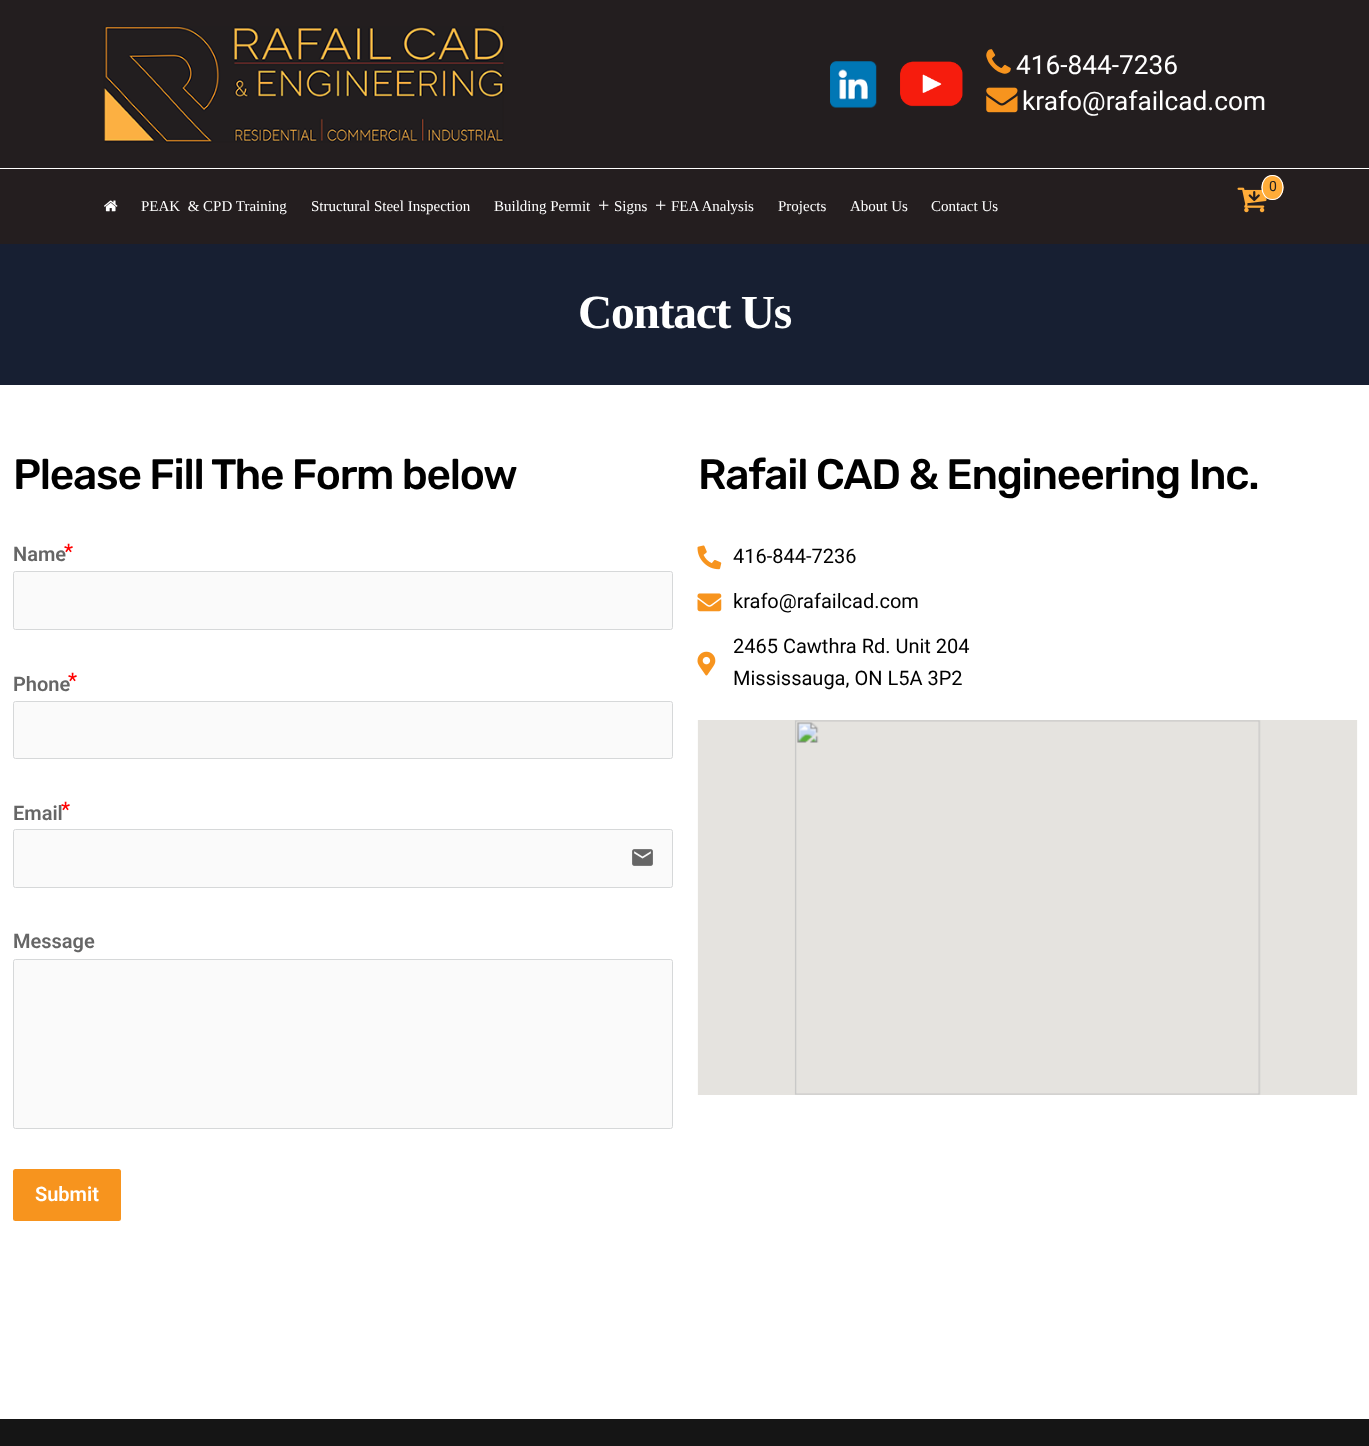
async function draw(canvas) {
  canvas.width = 1369
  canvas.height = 1446
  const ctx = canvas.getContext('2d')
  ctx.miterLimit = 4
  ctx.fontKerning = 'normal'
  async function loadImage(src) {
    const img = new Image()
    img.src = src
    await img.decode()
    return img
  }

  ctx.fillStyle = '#fff'
  ctx.fillRect(0, 0, 1369, 1446)
  ctx.fillStyle = '#231e1f'
  ctx.fillRect(0, 0, 1369, 168)
  ctx.drawImage(await loadImage('image0.png'), 103, 26, 401, 117)
  ctx.drawImage(await loadImage('image1.png'), 830, 61, 47, 47)
  ctx.drawImage(await loadImage('image2.png'), 900, 61, 63, 46)
  ctx.drawImage(await loadImage('image3.png'), 986, 49, 25, 25)
  ctx.font = '26.25px Roboto'
  ctx.fillStyle = '#fff'
  ctx.fillText('416-844-7236', 1016, 74)
  ctx.drawImage(await loadImage('image4.png'), 986, 87, 32, 26)
  ctx.fillText('krafo@rafailcad.com', 1022, 110)
  ctx.fillStyle = '#241e1f'
  ctx.fillRect(0, 169, 1369, 75)
  ctx.drawImage(await loadImage('image5.png'), 1237, 187, 30, 26)
  ctx.fillStyle = '#ffac39'
  ctx.beginPath()
  ctx.ellipse(1272.5, 187.5, 11, 12.5, 0, 0, 2 * Math.PI)
  ctx.fill()
  ctx.beginPath()
  ctx.moveTo(1272.5, 175.5)
  ctx.bezierCurveTo(1286.5, 175.5, 1286.5, 199.5, 1272.5, 199.5)
  ctx.bezierCurveTo(1258.5, 199.5, 1258.5, 175.5, 1272.5, 175.5)
  ctx.closePath()
  ctx.strokeStyle = '#fff'
  ctx.lineWidth = 1.2
  ctx.stroke()
  ctx.font = '14px Roboto'
  ctx.fillStyle = '#212121'
  ctx.fillText('0', 1269, 191)
  ctx.drawImage(await loadImage('image6.png'), 104, 200, 14, 12)
  ctx.font = '15px Liberation Serif'
  ctx.fillStyle = '#fff'
  ctx.fillText('PEAK  & CPD Training', 141, 211)
  ctx.fillText('Structural Steel Inspection', 311, 211)
  ctx.fillText('Building Permit', 494, 211)
  ctx.font = '20px Liberation Serif'
  ctx.fillText('+', 598, 212)
  ctx.font = '15px Liberation Serif'
  ctx.fillText('Signs', 614, 211)
  ctx.font = '20px Liberation Serif'
  ctx.fillText('+', 655, 212)
  ctx.font = '15px Liberation Serif'
  ctx.fillText('FEA Analysis', 671, 211)
  ctx.fillText('Projects', 778, 211)
  ctx.fillText('About Us', 850, 211)
  ctx.fillText('Contact Us', 931, 211)
  ctx.fillStyle = '#171f32'
  ctx.fillRect(0, 244, 1369, 141)
  ctx.letterSpacing = '-1.25px'
  ctx.font = 'bold 47.5px Liberation Serif'
  ctx.fillStyle = '#fff'
  ctx.fillText('Contact Us', 578, 328)
  ctx.font = '500 42.5px Rubik'
  ctx.fillStyle = '#000'
  ctx.fillText('Please Fill The Form below', 13, 489)
  ctx.letterSpacing = '0px'
  ctx.font = '600 20px Roboto'
  ctx.fillStyle = '#666'
  ctx.fillText('Name', 13, 561)
  ctx.fillStyle = '#f00'
  ctx.fillText('*', 64, 558)
  ctx.fillStyle = '#fafafa'
  ctx.beginPath()
  ctx.roundRect(13.5, 571.5, 659, 58, 2)
  ctx.fill()
  ctx.strokeStyle = '#d6d8d9'
  ctx.lineWidth = 1
  ctx.stroke()
  ctx.fillStyle = '#666'
  ctx.fillText('Phone', 13, 691)
  ctx.fillStyle = '#f00'
  ctx.fillText('*', 68, 687)
  ctx.fillStyle = '#fafafa'
  ctx.beginPath()
  ctx.roundRect(13.5, 701.5, 659, 57, 2)
  ctx.fill()
  ctx.stroke()
  ctx.fillStyle = '#666'
  ctx.fillText('Email', 13, 820)
  ctx.fillStyle = '#f00'
  ctx.fillText('*', 61, 816)
  ctx.fillStyle = '#fafafa'
  ctx.beginPath()
  ctx.roundRect(13.5, 829.5, 659, 58, 2)
  ctx.fill()
  ctx.stroke()
  ctx.drawImage(await loadImage('image7.png'), 632, 849, 21, 17)
  ctx.fillStyle = '#666'
  ctx.fillText('Message', 13, 948)
  ctx.fillStyle = '#fafafa'
  ctx.beginPath()
  ctx.roundRect(13.5, 959.5, 659, 169, 2)
  ctx.fill()
  ctx.stroke()
  ctx.fillStyle = '#f7941e'
  ctx.beginPath()
  ctx.roundRect(13, 1169, 108, 52, 2.5)
  ctx.fill()
  ctx.fillStyle = '#fff'
  ctx.fillText('Submit', 35, 1201)
  ctx.letterSpacing = '-1.25px'
  ctx.font = '500 42.5px Rubik'
  ctx.fillStyle = '#000'
  ctx.fillText('Rafail CAD & Engineering Inc.', 698, 489)
  ctx.drawImage(await loadImage('image8.png'), 697, 545, 25, 25)
  ctx.letterSpacing = '0px'
  ctx.font = '20px Roboto'
  ctx.fillText('416-844-7236', 733, 563)
  ctx.drawImage(await loadImage('image9.png'), 697, 593, 25, 19)
  ctx.fillText('krafo@rafailcad.com', 733, 608)
  ctx.drawImage(await loadImage('image10.png'), 697, 651, 19, 25)
  ctx.fillText('2465 Cawthra Rd. Unit 204', 733, 653)
  ctx.fillText('Mississauga, ON L5A 3P2', 733, 685)
  ctx.drawImage(await loadImage('image11.png'), 697, 720, 661, 375)
  ctx.fillStyle = '#151515'
  ctx.fillRect(0, 1419, 1369, 27)
}

draw(document.querySelector('canvas'))
